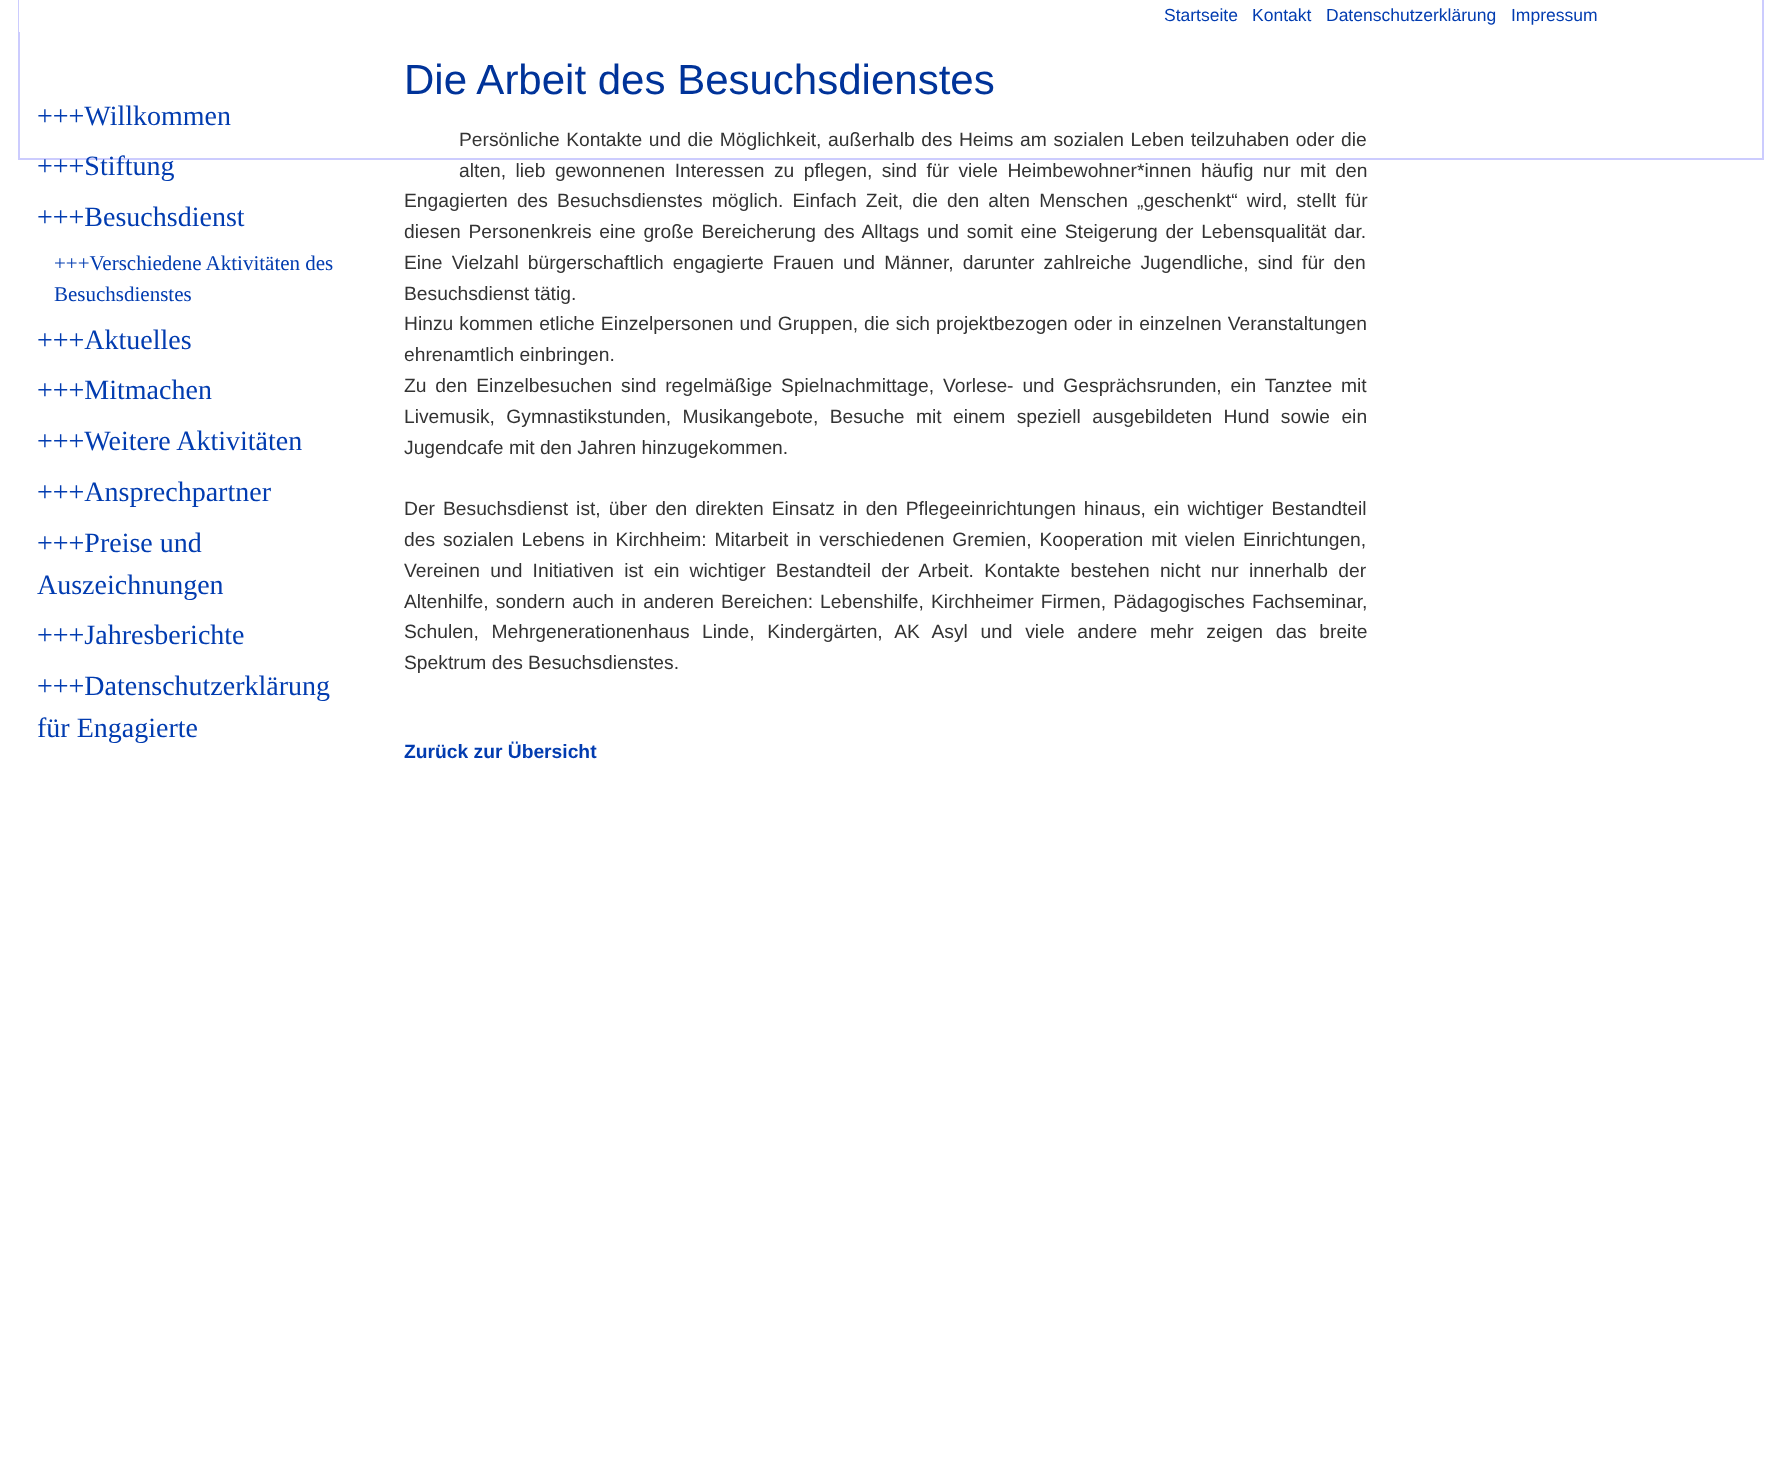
async function draw(canvas) {
  canvas.width = 1780
  canvas.height = 1470
  const ctx = canvas.getContext('2d')
  ctx.miterLimit = 4
  ctx.fontKerning = 'normal'

  ctx.fillStyle = '#fff'
  ctx.fillRect(0, 0, 1780, 1470)
  ctx.fillStyle = '#ccccfe'
  ctx.fillRect(1762, 0, 2, 159)
  ctx.fillRect(18, 158, 1746, 2)
  ctx.fillRect(18, 0, 2, 159)
  ctx.fillStyle = '#fff'
  ctx.fillRect(19, 0, 1, 32)
  ctx.font = '17.5px Liberation Sans'
  ctx.fillStyle = '#023cb0'
  ctx.fillText('Startseite', 1164, 21)
  ctx.fillText('Kontakt', 1252, 21)
  ctx.fillText('Datenschutzerklärung', 1326, 21)
  ctx.fillText('Impressum', 1511, 21)
  ctx.font = '28px Liberation Serif'
  ctx.fillText('+++Willkommen', 37, 125)
  ctx.fillText('+++Stiftung', 37, 175)
  ctx.fillText('+++Besuchsdienst', 37, 226)
  ctx.font = '21px Liberation Serif'
  ctx.fillText('+++Verschiedene Aktivitäten des', 54, 270)
  ctx.fillText('Besuchsdienstes', 54, 301)
  ctx.font = '28px Liberation Serif'
  ctx.fillText('+++Aktuelles', 37, 349)
  ctx.fillText('+++Mitmachen', 37, 399)
  ctx.fillText('+++Weitere Aktivitäten', 37, 450)
  ctx.fillText('+++Ansprechpartner', 37, 501)
  ctx.fillText('+++Preise und', 37, 552)
  ctx.fillText('Auszeichnungen', 37, 594)
  ctx.fillText('+++Jahresberichte', 37, 644)
  ctx.fillText('+++Datenschutzerklärung', 37, 695)
  ctx.fillText('für Engagierte', 37, 737)
  ctx.font = '42px Liberation Sans'
  ctx.fillStyle = '#039'
  ctx.fillText('Die Arbeit des Besuchsdienstes', 404, 94)
  ctx.wordSpacing = '1.25px'
  ctx.font = '19.25px Liberation Sans'
  ctx.fillStyle = '#333'
  ctx.fillText('Persönliche Kontakte und die Möglichkeit, außerhalb des Heims am sozialen Leben teilzuhaben oder die', 459, 146)
  ctx.wordSpacing = '4.1px'
  ctx.fillText('alten, lieb gewonnenen Interessen zu pflegen, sind für viele Heimbewohner*innen häufig nur mit den', 459, 177)
  ctx.wordSpacing = '3.75px'
  ctx.fillText('Engagierten des Besuchsdienstes möglich. Einfach Zeit, die den alten Menschen „geschenkt“ wird, stellt für', 404, 207)
  ctx.wordSpacing = '2.4px'
  ctx.fillText('diesen Personenkreis eine große Bereicherung des Alltags und somit eine Steigerung der Lebensqualität dar.', 404, 238)
  ctx.wordSpacing = '3.75px'
  ctx.fillText('Eine Vielzahl bürgerschaftlich engagierte Frauen und Männer, darunter zahlreiche Jugendliche, sind für den', 404, 269)
  ctx.wordSpacing = '0px'
  ctx.fillText('Besuchsdienst tätig.', 404, 300)
  ctx.wordSpacing = '0.7px'
  ctx.fillText('Hinzu kommen etliche Einzelpersonen und Gruppen, die sich projektbezogen oder in einzelnen Veranstaltungen', 404, 330)
  ctx.wordSpacing = '0px'
  ctx.fillText('ehrenamtlich einbringen.', 404, 361)
  ctx.wordSpacing = '3.5px'
  ctx.fillText('Zu den Einzelbesuchen sind regelmäßige Spielnachmittage, Vorlese- und Gesprächsrunden, ein Tanztee mit', 404, 392)
  ctx.wordSpacing = '6px'
  ctx.fillText('Livemusik, Gymnastikstunden, Musikangebote, Besuche mit einem speziell ausgebildeten Hund sowie ein', 404, 423)
  ctx.wordSpacing = '0px'
  ctx.fillText('Jugendcafe mit den Jahren hinzugekommen.', 404, 454)
  ctx.wordSpacing = '2.6px'
  ctx.fillText('Der Besuchsdienst ist, über den direkten Einsatz in den Pflegeeinrichtungen hinaus, ein wichtiger Bestandteil', 404, 515)
  ctx.fillText('des sozialen Lebens in Kirchheim: Mitarbeit in verschiedenen Gremien, Kooperation mit vielen Einrichtungen,', 404, 546)
  ctx.wordSpacing = '4.9px'
  ctx.fillText('Vereinen und Initiativen ist ein wichtiger Bestandteil der Arbeit. Kontakte bestehen nicht nur innerhalb der', 404, 577)
  ctx.wordSpacing = '1.75px'
  ctx.fillText('Altenhilfe, sondern auch in anderen Bereichen: Lebenshilfe, Kirchheimer Firmen, Pädagogisches Fachseminar,', 404, 608)
  ctx.wordSpacing = '7.25px'
  ctx.fillText('Schulen, Mehrgenerationenhaus Linde, Kindergärten, AK Asyl und viele andere mehr zeigen das breite', 404, 638)
  ctx.wordSpacing = '0px'
  ctx.fillText('Spektrum des Besuchsdienstes.', 404, 669)
  ctx.font = 'bold 19.25px Liberation Sans'
  ctx.fillStyle = '#023cb0'
  ctx.fillText('Zurück zur Übersicht', 404, 758)
}

draw(document.querySelector('canvas'))
